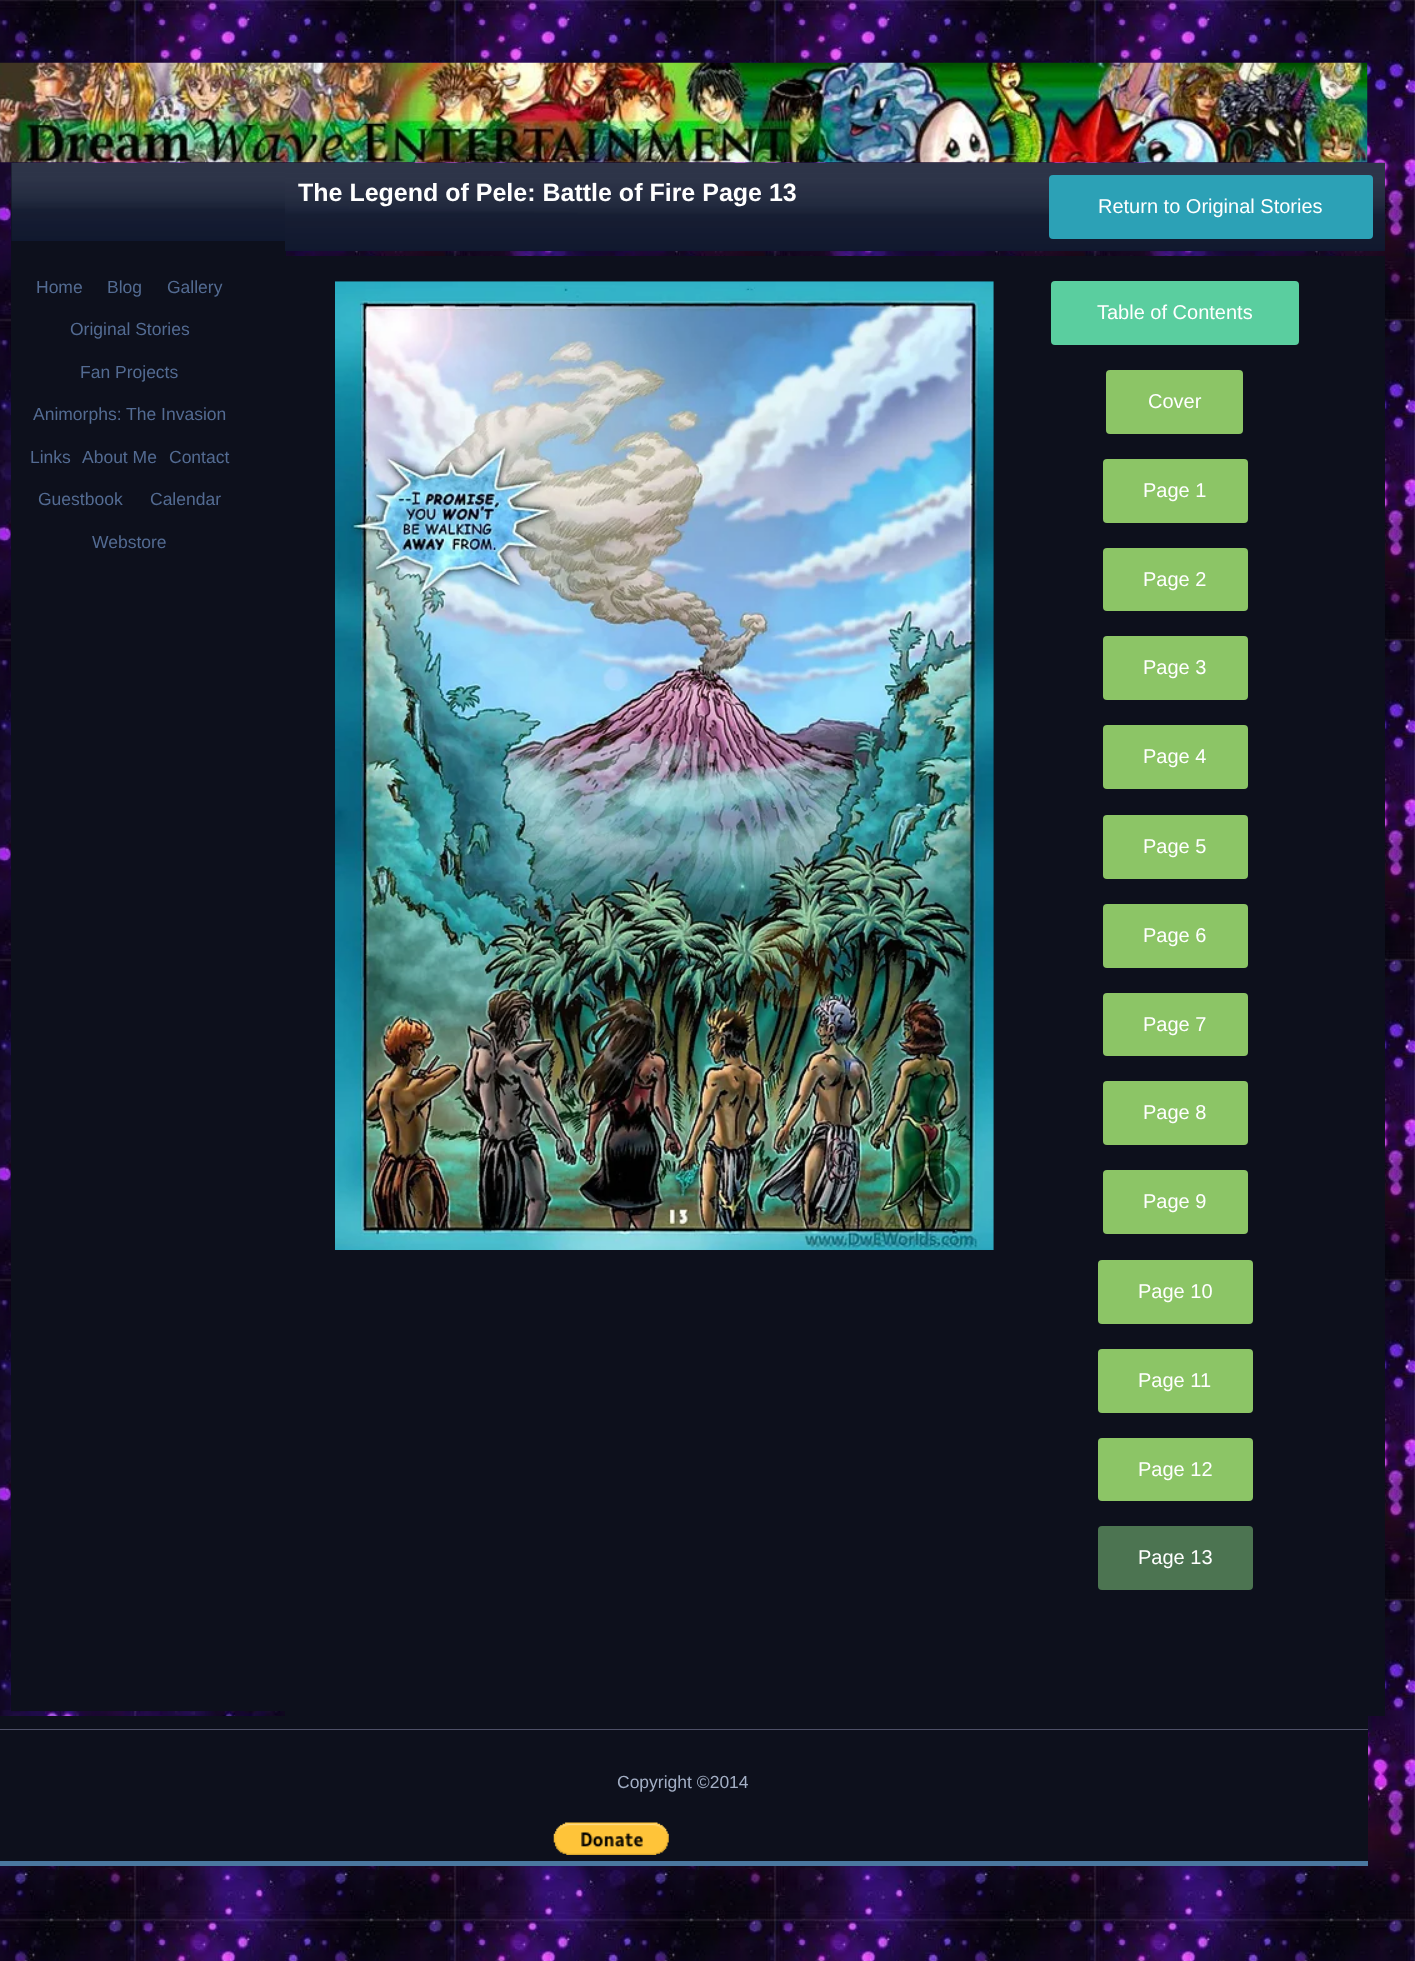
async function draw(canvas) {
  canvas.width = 1415
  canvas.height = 1961
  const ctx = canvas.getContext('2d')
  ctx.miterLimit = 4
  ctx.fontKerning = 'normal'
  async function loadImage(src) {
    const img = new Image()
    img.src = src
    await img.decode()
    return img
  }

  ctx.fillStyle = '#fff'
  ctx.fillRect(0, 0, 1415, 1961)
  ctx.drawImage(await loadImage('image0.png'), 0, 0, 1415, 1961)
  ctx.fillStyle = '#0d101c'
  ctx.fillRect(11, 163, 275, 1548)
  ctx.drawImage(await loadImage('image3.png'), 11, 162, 275, 79)
  ctx.drawImage(await loadImage('image2.png'), 285, 162, 1100, 90)
  ctx.drawImage(await loadImage('image1.png'), 0, 62, 1368, 101)
  ctx.font = 'bold 25px Liberation Sans'
  ctx.fillStyle = '#fff'
  ctx.fillText('The Legend of Pele: Battle of Fire Page 13', 298, 201)
  ctx.fillStyle = '#2ca1b6'
  ctx.beginPath()
  ctx.roundRect(1049, 175, 324, 64, 4)
  ctx.fill()
  ctx.font = '20px Liberation Sans'
  ctx.fillStyle = '#fff'
  ctx.fillText('Return to Original Stories', 1098, 213)
  ctx.font = '17.5px Liberation Sans'
  ctx.fillStyle = '#536b92'
  ctx.fillText('Home', 36, 293)
  ctx.fillText('Blog', 107, 293)
  ctx.fillText('Gallery', 167, 293)
  ctx.fillText('Original Stories', 70, 335)
  ctx.fillText('Fan Projects', 80, 378)
  ctx.fillText('Animorphs: The Invasion', 33, 420)
  ctx.fillText('Links', 30, 463)
  ctx.fillText('About Me', 82, 463)
  ctx.fillText('Contact', 169, 463)
  ctx.fillText('Guestbook', 38, 505)
  ctx.fillText('Calendar', 150, 505)
  ctx.fillText('Webstore', 92, 548)
  ctx.fillStyle = '#0d101c'
  ctx.fillRect(285, 256, 1100, 1460)
  ctx.drawImage(await loadImage('image4.png'), 335, 281, 659, 969)
  ctx.fillStyle = '#5ace9f'
  ctx.beginPath()
  ctx.roundRect(1051, 281, 248, 64, 4)
  ctx.fill()
  ctx.font = '20px Liberation Sans'
  ctx.fillStyle = '#fff'
  ctx.fillText('Table of Contents', 1097, 319)
  ctx.fillStyle = '#8cc566'
  ctx.beginPath()
  ctx.roundRect(1106, 370, 137, 64, 4)
  ctx.fill()
  ctx.fillStyle = '#fff'
  ctx.fillText('Cover', 1148, 408)
  ctx.fillStyle = '#8cc566'
  ctx.beginPath()
  ctx.roundRect(1103, 459, 145, 64, 4)
  ctx.fill()
  ctx.fillStyle = '#fff'
  ctx.fillText('Page 1', 1143, 497)
  ctx.fillStyle = '#8cc566'
  ctx.beginPath()
  ctx.roundRect(1103, 548, 145, 63, 4)
  ctx.fill()
  ctx.fillStyle = '#fff'
  ctx.fillText('Page 2', 1143, 586)
  ctx.fillStyle = '#8cc566'
  ctx.beginPath()
  ctx.roundRect(1103, 636, 145, 64, 4)
  ctx.fill()
  ctx.fillStyle = '#fff'
  ctx.fillText('Page 3', 1143, 674)
  ctx.fillStyle = '#8cc566'
  ctx.beginPath()
  ctx.roundRect(1103, 725, 145, 64, 4)
  ctx.fill()
  ctx.fillStyle = '#fff'
  ctx.fillText('Page 4', 1143, 763)
  ctx.fillStyle = '#8cc566'
  ctx.beginPath()
  ctx.roundRect(1103, 815, 145, 64, 4)
  ctx.fill()
  ctx.fillStyle = '#fff'
  ctx.fillText('Page 5', 1143, 853)
  ctx.fillStyle = '#8cc566'
  ctx.beginPath()
  ctx.roundRect(1103, 904, 145, 64, 4)
  ctx.fill()
  ctx.fillStyle = '#fff'
  ctx.fillText('Page 6', 1143, 942)
  ctx.fillStyle = '#8cc566'
  ctx.beginPath()
  ctx.roundRect(1103, 993, 145, 63, 4)
  ctx.fill()
  ctx.fillStyle = '#fff'
  ctx.fillText('Page 7', 1143, 1031)
  ctx.fillStyle = '#8cc566'
  ctx.beginPath()
  ctx.roundRect(1103, 1081, 145, 64, 4)
  ctx.fill()
  ctx.fillStyle = '#fff'
  ctx.fillText('Page 8', 1143, 1119)
  ctx.fillStyle = '#8cc566'
  ctx.beginPath()
  ctx.roundRect(1103, 1170, 145, 64, 4)
  ctx.fill()
  ctx.fillStyle = '#fff'
  ctx.fillText('Page 9', 1143, 1208)
  ctx.fillStyle = '#8cc566'
  ctx.beginPath()
  ctx.roundRect(1098, 1260, 155, 64, 4)
  ctx.fill()
  ctx.fillStyle = '#fff'
  ctx.fillText('Page 10', 1138, 1298)
  ctx.fillStyle = '#8cc566'
  ctx.beginPath()
  ctx.roundRect(1098, 1349, 155, 64, 4)
  ctx.fill()
  ctx.fillStyle = '#fff'
  ctx.fillText('Page 11', 1138, 1387)
  ctx.fillStyle = '#8cc566'
  ctx.beginPath()
  ctx.roundRect(1098, 1438, 155, 63, 4)
  ctx.fill()
  ctx.fillStyle = '#fff'
  ctx.fillText('Page 12', 1138, 1476)
  ctx.fillStyle = '#4c7451'
  ctx.beginPath()
  ctx.roundRect(1098, 1526, 155, 64, 4)
  ctx.fill()
  ctx.fillStyle = '#fff'
  ctx.fillText('Page 13', 1138, 1564)
  ctx.fillStyle = '#0d101c'
  ctx.fillRect(0, 1716, 1368, 145)
  ctx.fillStyle = '#4e5067'
  ctx.fillRect(0, 1729, 1368, 1)
  ctx.font = '17.5px Liberation Sans'
  ctx.fillStyle = '#a3afc5'
  ctx.fillText('Copyright ©2014', 617, 1788)
  ctx.drawImage(await loadImage('image5.png'), 553, 1822, 116, 33)
  ctx.fillStyle = '#4a779f'
  ctx.fillRect(0, 1861, 1368, 5)
}

draw(document.querySelector('canvas'))
